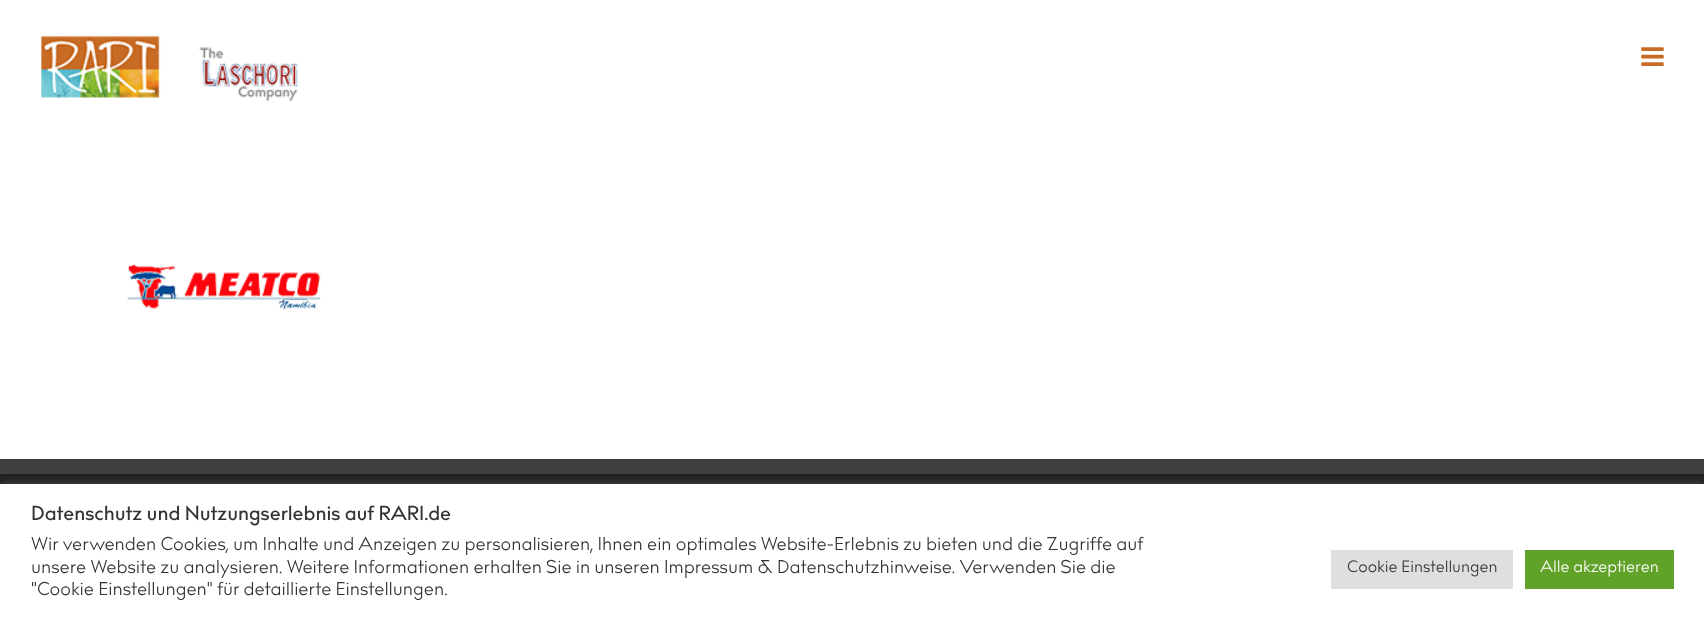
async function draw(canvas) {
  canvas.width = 1704
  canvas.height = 620
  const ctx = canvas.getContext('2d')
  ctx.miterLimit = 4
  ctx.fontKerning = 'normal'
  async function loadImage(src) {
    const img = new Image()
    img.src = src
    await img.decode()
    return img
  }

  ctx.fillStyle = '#fff'
  ctx.fillRect(0, 0, 1704, 620)
  ctx.drawImage(await loadImage('image0.png'), 41, 36, 257, 66)
  ctx.drawImage(await loadImage('image1.png'), 1641, 47, 23, 19)
  ctx.drawImage(await loadImage('image2.png'), 127, 264, 194, 45)
  ctx.fillStyle = '#1e1e1e'
  ctx.fillRect(0, 474, 1704, 10)
  ctx.fillStyle = '#3f3f3f'
  ctx.fillRect(0, 459, 1704, 15)
  ctx.fillStyle = '#acabab4d'
  ctx.filter = 'blur(6px)'
  ctx.beginPath()
  ctx.rect(0, 483, 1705, 136)
  ctx.fill()
  ctx.filter = 'none'
  ctx.fillStyle = '#fff'
  ctx.fillRect(0, 484, 1704, 136)
  ctx.font = '500 20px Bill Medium'
  ctx.fillStyle = '#333'
  ctx.fillText('Datenschutz und Nutzungserlebnis auf RARI.de', 31, 520)
  ctx.font = '18.33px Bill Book'
  ctx.fillText('Wir verwenden Cookies, um Inhalte und Anzeigen zu personalisieren, Ihnen ein optimales Website-Erlebnis zu bieten und die Zugriffe auf', 31, 550)
  ctx.fillText('unsere Website zu analysieren. Weitere Informationen erhalten Sie in unseren Impressum & Datenschutzhinweise. Verwenden Sie die', 31, 573)
  ctx.fillText('"Cookie Einstellungen" für detaillierte Einstellungen.', 31, 595)
  ctx.fillStyle = '#dedfe0'
  ctx.fillRect(1331, 550, 182, 39)
  ctx.font = '16.25px Bill Book'
  ctx.fillStyle = '#333'
  ctx.fillText('Cookie Einstellungen', 1347, 572)
  ctx.fillStyle = '#61a229'
  ctx.fillRect(1525, 550, 149, 39)
  ctx.fillStyle = '#fff'
  ctx.fillText('Alle akzeptieren', 1540, 572)
}

draw(document.querySelector('canvas'))
